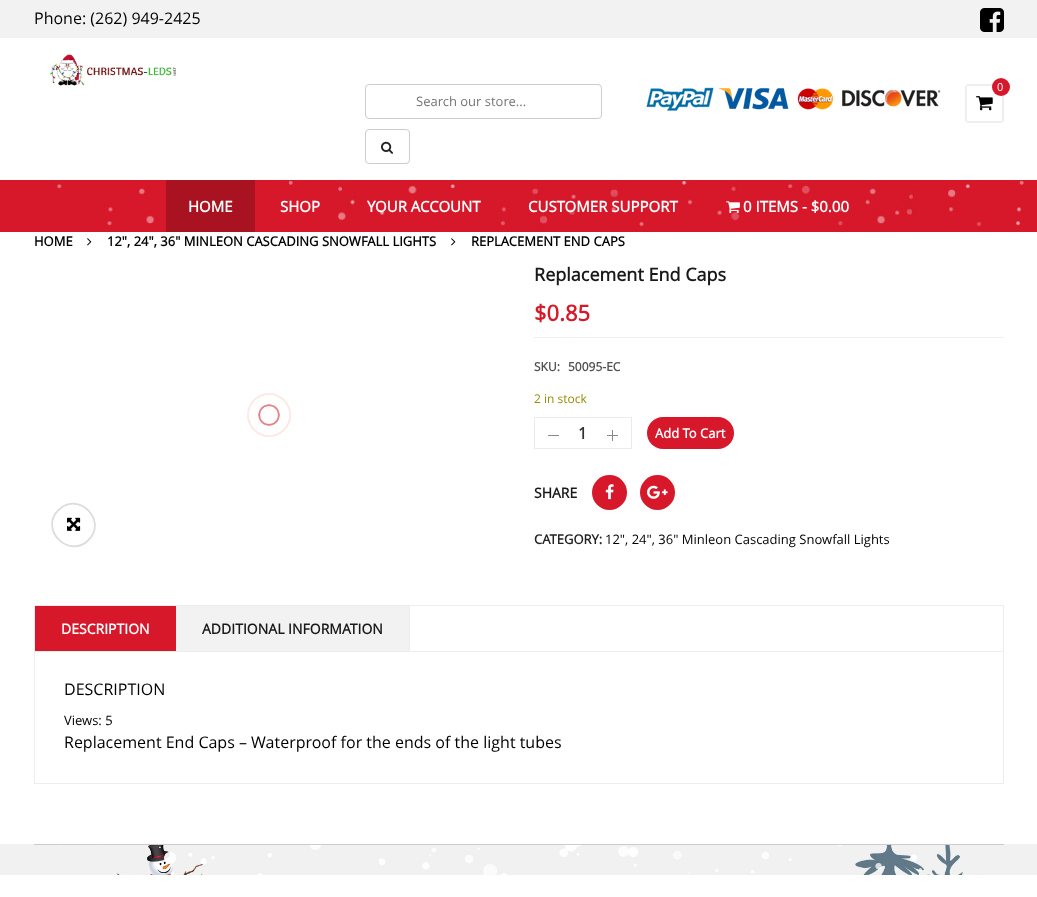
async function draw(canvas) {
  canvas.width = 1037
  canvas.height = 897
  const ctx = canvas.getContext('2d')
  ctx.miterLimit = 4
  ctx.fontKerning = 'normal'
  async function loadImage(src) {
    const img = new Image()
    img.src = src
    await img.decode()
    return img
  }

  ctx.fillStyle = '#fff'
  ctx.fillRect(0, 0, 1037, 897)
  ctx.fillStyle = '#f2f2f2'
  ctx.fillRect(0, 0, 1037, 38)
  ctx.font = '16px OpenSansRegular'
  ctx.fillStyle = '#000'
  ctx.fillText('Phone: (262) 949-2425', 34, 24)
  ctx.drawImage(await loadImage('image0.png'), 980, 8, 24, 24)
  ctx.drawImage(await loadImage('image1.png'), 49, 54, 127, 32)
  ctx.drawImage(await loadImage('image2.png'), 646, 87, 295, 24)
  ctx.beginPath()
  ctx.roundRect(966, 85, 37, 37, 3)
  ctx.strokeStyle = '#eee'
  ctx.lineWidth = 2
  ctx.stroke()
  ctx.fillStyle = '#fff'
  ctx.fillRect(967, 86, 35, 35)
  ctx.fillStyle = '#d7182a'
  ctx.beginPath()
  ctx.arc(1001, 87, 9, 0, 2 * Math.PI)
  ctx.fill()
  ctx.font = '11px OpenSansRegular'
  ctx.fillStyle = '#fff'
  ctx.fillText('0', 997, 91)
  ctx.drawImage(await loadImage('image3.png'), 976, 96, 17, 15)
  ctx.beginPath()
  ctx.roundRect(365.5, 84.5, 236, 34, 3.5)
  ctx.strokeStyle = '#ccc'
  ctx.lineWidth = 1
  ctx.stroke()
  ctx.font = '13px OpenSansRegular'
  ctx.fillStyle = '#757575'
  ctx.fillText('Search our store...', 416, 106)
  ctx.beginPath()
  ctx.roundRect(365.5, 129.5, 44, 34, 3.5)
  ctx.stroke()
  ctx.drawImage(await loadImage('image4.png'), 381, 141, 12, 13)
  ctx.drawImage(await loadImage('image5.png'), 0, 180, 1037, 52)
  ctx.fillStyle = '#a91321'
  ctx.fillRect(166, 180, 89, 52)
  ctx.font = 'bold 15px OpenSansRegular'
  ctx.fillStyle = '#fff'
  ctx.fillText('HOME', 188, 212)
  ctx.fillText('SHOP', 280, 212)
  ctx.fillText('YOUR ACCOUNT', 367, 212)
  ctx.fillText('CUSTOMER SUPPORT', 528, 212)
  ctx.drawImage(await loadImage('image6.png'), 726, 201, 14, 13)
  ctx.fillText('0 ITEMS - $0.00', 743, 212)
  ctx.font = 'bold 13px OpenSansRegular'
  ctx.fillStyle = '#000'
  ctx.fillText('HOME', 34, 246)
  ctx.drawImage(await loadImage('image7.png'), 87, 238, 5, 8)
  ctx.fillText('12", 24", 36" MINLEON CASCADING SNOWFALL LIGHTS', 107, 246)
  ctx.drawImage(await loadImage('image7.png'), 451, 238, 5, 8)
  ctx.fillText('REPLACEMENT END CAPS', 471, 246)
  ctx.drawImage(await loadImage('image8.png'), 247, 393, 44, 44)
  ctx.beginPath()
  ctx.moveTo(58.5, 510)
  ctx.bezierCurveTo(78, 490.5, 108, 520.5, 88.5, 540)
  ctx.bezierCurveTo(69, 559.5, 39, 529.5, 58.5, 510)
  ctx.closePath()
  ctx.strokeStyle = '#ddd'
  ctx.lineWidth = 2
  ctx.stroke()
  ctx.fillStyle = '#fff'
  ctx.beginPath()
  ctx.moveTo(59, 511)
  ctx.bezierCurveTo(78, 492, 106, 521, 88, 539)
  ctx.bezierCurveTo(69, 558, 41, 529, 59, 511)
  ctx.closePath()
  ctx.fill()
  ctx.drawImage(await loadImage('image9.png'), 67, 517, 14, 14)
  ctx.font = 'bold 18px OpenSansRegular'
  ctx.fillStyle = '#191919'
  ctx.fillText('Replacement End Caps', 534, 281)
  ctx.font = 'bold 22px OpenSansRegular'
  ctx.fillStyle = '#d7182a'
  ctx.fillText('$0.85', 534, 321)
  ctx.fillStyle = '#f0f0ed'
  ctx.fillRect(534, 337, 470, 1)
  ctx.font = 'bold 12px OpenSansRegular'
  ctx.fillStyle = '#525252'
  ctx.fillText('SKU:', 534, 371)
  ctx.fillText('50095-EC', 568, 371)
  ctx.font = '12px OpenSansRegular'
  ctx.fillStyle = '#958e09'
  ctx.fillText('2 in stock', 534, 403)
  ctx.strokeStyle = '#ebebeb'
  ctx.lineWidth = 1
  ctx.strokeRect(534.5, 417.5, 97, 31)
  ctx.fillStyle = '#898989'
  ctx.fillRect(548, 435, 11, 1)
  ctx.font = 'bold 16px OpenSansRegular'
  ctx.fillStyle = '#323232'
  ctx.fillText('1', 578, 439)
  ctx.drawImage(await loadImage('image10.png'), 607, 430, 11, 11)
  ctx.fillStyle = '#d7182a'
  ctx.beginPath()
  ctx.roundRect(647, 417, 87, 32, 16)
  ctx.fill()
  ctx.font = 'bold 13px OpenSansRegular'
  ctx.fillStyle = '#fff'
  ctx.fillText('Add To Cart', 655, 438)
  ctx.font = 'bold 14px OpenSansRegular'
  ctx.fillStyle = '#191919'
  ctx.fillText('SHARE', 534, 498)
  ctx.fillStyle = '#d7182a'
  ctx.beginPath()
  ctx.arc(609.5, 492.5, 17.5, 0, 2 * Math.PI)
  ctx.fill()
  ctx.drawImage(await loadImage('image11.png'), 605, 484, 9, 16)
  ctx.beginPath()
  ctx.arc(657.5, 492.5, 17.5, 0, 2 * Math.PI)
  ctx.fill()
  ctx.drawImage(await loadImage('image12.png'), 647, 485, 21, 14)
  ctx.font = 'bold 13px OpenSansRegular'
  ctx.fillStyle = '#222'
  ctx.fillText('CATEGORY:', 534, 544)
  ctx.font = '13px OpenSansRegular'
  ctx.fillStyle = '#000'
  ctx.fillText('12", 24", 36" Minleon Cascading Snowfall Lights', 605, 544)
  ctx.strokeStyle = '#ededed'
  ctx.strokeRect(34.5, 605.5, 969, 178)
  ctx.fillStyle = '#ededed'
  ctx.fillRect(35, 651, 968, 1)
  ctx.fillStyle = '#d7182a'
  ctx.fillRect(35, 606, 141, 45)
  ctx.font = 'bold 14px OpenSansRegular'
  ctx.fillStyle = '#fff'
  ctx.fillText('DESCRIPTION', 61, 634)
  ctx.fillStyle = '#f2f2f2'
  ctx.fillRect(176, 606, 233, 45)
  ctx.fillStyle = '#ededed'
  ctx.fillRect(409, 606, 1, 45)
  ctx.fillStyle = '#191919'
  ctx.fillText('ADDITIONAL INFORMATION', 202, 634)
  ctx.font = '16px OpenSansRegular'
  ctx.fillStyle = '#000'
  ctx.fillText('DESCRIPTION', 64, 695)
  ctx.font = '13px OpenSansRegular'
  ctx.fillText('Views: 5', 64, 725)
  ctx.font = '16px OpenSansRegular'
  ctx.fillText('Replacement End Caps – Waterproof for the ends of the light tubes', 64, 748)
  ctx.drawImage(await loadImage('image13.png'), 0, 844, 1037, 31)
  ctx.fillStyle = '#ccc'
  ctx.fillRect(34, 844, 970, 1)
}

draw(document.querySelector('canvas'))
